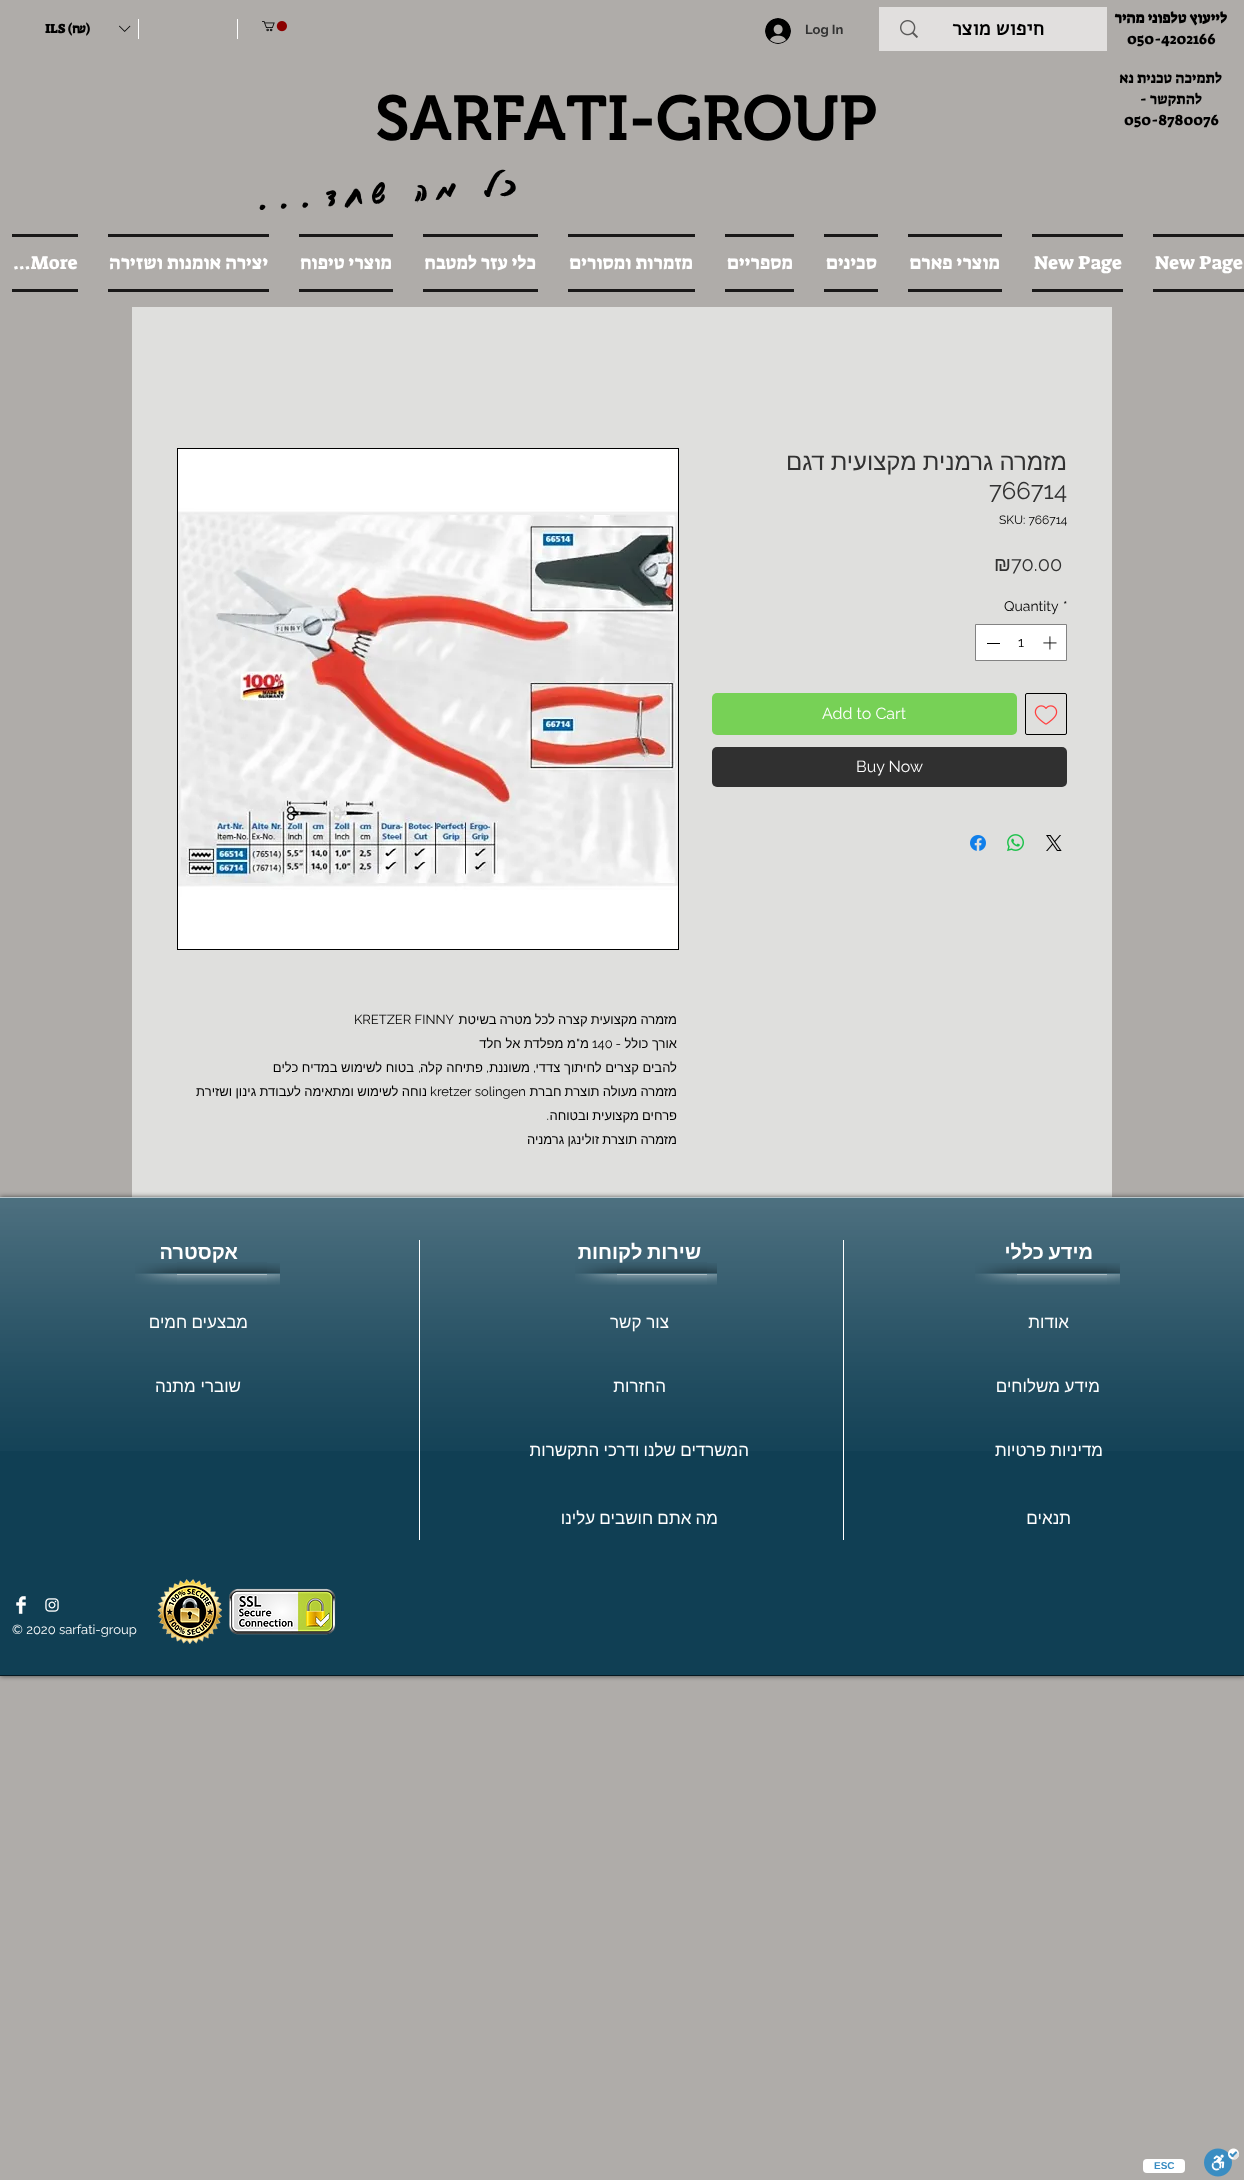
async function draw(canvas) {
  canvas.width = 1244
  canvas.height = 2180
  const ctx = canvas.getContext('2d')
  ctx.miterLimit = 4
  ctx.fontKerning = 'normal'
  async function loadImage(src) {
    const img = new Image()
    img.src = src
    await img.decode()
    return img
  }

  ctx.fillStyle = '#afaca9'
  ctx.fillRect(0, 0, 1244, 2180)
  ctx.direction = 'rtl'
  ctx.font = 'bold 15px Suez One'
  ctx.fillStyle = '#000'
  ctx.fillText('לייעוץ טלפוני מהיר', 1227, 23)
  ctx.direction = 'ltr'
  ctx.font = '15px Suez One'
  ctx.fillText('050-4202166', 1127, 44)
  ctx.direction = 'rtl'
  ctx.fillText('לתמיכה טכנית נא', 1222, 83)
  ctx.fillText('להתקשר -', 1202, 104)
  ctx.direction = 'ltr'
  ctx.fillText('050-8780076', 1124, 125)
  ctx.fillStyle = '#e1dfde'
  ctx.fillRect(879, 7, 228, 44)
  ctx.direction = 'rtl'
  ctx.font = 'bold 20px Alef'
  ctx.fillStyle = '#000'
  ctx.fillText('חיפוש מוצר', 1044, 35)
  ctx.drawImage(await loadImage('image0.png'), 900, 20, 18, 18)
  ctx.direction = 'ltr'
  ctx.font = 'bold 13px Raleway'
  ctx.fillStyle = '#323232'
  ctx.fillText('Log In', 805, 34)
  ctx.drawImage(await loadImage('image1.png'), 765, 18, 26, 26)
  ctx.drawImage(await loadImage('image2.png'), 262, 21, 25, 11)
  ctx.fillStyle = '#fff'
  ctx.fillRect(237, 19, 1, 20)
  ctx.fillRect(138, 19, 1, 20)
  ctx.drawImage(await loadImage('image3.png'), 119, 25, 12, 7)
  ctx.font = 'bold 13px Suez One'
  ctx.fillStyle = '#000'
  ctx.fillText('ILS (₪)', 45, 33)
  ctx.font = '600 63px "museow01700"'
  ctx.fillText('SARFATI-GROUP', 375, 140)
  ctx.letterSpacing = '10.5px'
  ctx.direction = 'rtl'
  ctx.font = 'bold 42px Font'
  ctx.save()
  ctx.translate(526, 195)
  ctx.rotate(-3.3 * Math.PI / 180)
  ctx.fillText('כל מה שחד...', 0, 0)
  ctx.restore()
  ctx.fillStyle = '#191818'
  ctx.fillRect(1153, 234, 91, 3)
  ctx.fillRect(1153, 289, 91, 3)
  ctx.letterSpacing = '0px'
  ctx.direction = 'ltr'
  ctx.font = '19px Suez One'
  ctx.fillStyle = '#fff'
  ctx.fillText('New Page', 1155, 269)
  ctx.fillStyle = '#191818'
  ctx.fillRect(1032, 234, 91, 3)
  ctx.fillRect(1032, 289, 91, 3)
  ctx.fillStyle = '#fff'
  ctx.fillText('New Page', 1034, 269)
  ctx.fillStyle = '#191818'
  ctx.fillRect(908, 234, 94, 3)
  ctx.fillRect(908, 289, 94, 3)
  ctx.direction = 'rtl'
  ctx.fillStyle = '#fff'
  ctx.fillText('מוצרי פארם', 1000, 269)
  ctx.fillStyle = '#191818'
  ctx.fillRect(824, 234, 54, 3)
  ctx.fillRect(824, 289, 54, 3)
  ctx.fillStyle = '#fff'
  ctx.fillText('סכינים', 877, 269)
  ctx.fillStyle = '#191818'
  ctx.fillRect(725, 234, 69, 3)
  ctx.fillRect(725, 289, 69, 3)
  ctx.fillStyle = '#fff'
  ctx.fillText('מספריים', 793, 269)
  ctx.fillStyle = '#191818'
  ctx.fillRect(568, 234, 127, 3)
  ctx.fillRect(568, 289, 127, 3)
  ctx.fillStyle = '#fff'
  ctx.fillText('מזמרות ומסורים', 693, 269)
  ctx.fillStyle = '#191818'
  ctx.fillRect(423, 234, 115, 3)
  ctx.fillRect(423, 289, 115, 3)
  ctx.fillStyle = '#fff'
  ctx.fillText('כלי עזר למטבח', 536, 269)
  ctx.fillStyle = '#191818'
  ctx.fillRect(299, 234, 94, 3)
  ctx.fillRect(299, 289, 94, 3)
  ctx.fillStyle = '#fff'
  ctx.fillText('מוצרי טיפוח', 392, 269)
  ctx.fillStyle = '#191818'
  ctx.fillRect(108, 234, 161, 3)
  ctx.fillRect(108, 289, 161, 3)
  ctx.fillStyle = '#fff'
  ctx.fillText('יצירה אומנות ושזירה', 268, 269)
  ctx.fillStyle = '#191818'
  ctx.fillRect(12, 234, 66, 3)
  ctx.fillRect(12, 289, 66, 3)
  ctx.direction = 'ltr'
  ctx.fillStyle = '#fff'
  ctx.fillText('...More', 13, 269)
  ctx.fillStyle = '#dfdfdd'
  ctx.fillRect(132, 307, 980, 890)
  ctx.wordSpacing = '-0.5px'
  ctx.direction = 'rtl'
  ctx.font = '24px Liberation Sans'
  ctx.fillStyle = '#323232'
  ctx.fillText('מזמרה גרמנית מקצועית דגם', 1067, 470)
  ctx.wordSpacing = '0px'
  ctx.direction = 'ltr'
  ctx.font = '24px Raleway'
  ctx.fillText('766714', 989, 499)
  ctx.font = '12px Raleway'
  ctx.fillStyle = '#000'
  ctx.fillText('SKU: 766714', 999, 524)
  ctx.font = '20px Raleway'
  ctx.fillStyle = '#323232'
  ctx.fillText('70.00', 1011, 571)
  ctx.font = '20px Liberation Sans'
  ctx.fillText('₪', 994, 571)
  ctx.font = '14px Raleway'
  ctx.fillStyle = '#000'
  ctx.fillText('*', 1063, 611)
  ctx.fillText('Quantity', 1004, 611)
  ctx.fillStyle = '#fff'
  ctx.beginPath()
  ctx.rect(975.5, 624.5, 91, 36)
  ctx.fill()
  ctx.strokeStyle = '#838383'
  ctx.stroke()
  ctx.drawImage(await loadImage('image4.png'), 1043, 636, 14, 14)
  ctx.fillStyle = '#000'
  ctx.fillText('1', 1018, 647)
  ctx.fillRect(987, 643, 13, 1)
  ctx.beginPath()
  ctx.roundRect(1025.5, 693.5, 41, 41, 1.5)
  ctx.strokeStyle = '#000'
  ctx.stroke()
  ctx.drawImage(await loadImage('image5.png'), 1034, 705, 24, 20)
  ctx.fillStyle = '#77d156'
  ctx.beginPath()
  ctx.roundRect(712, 693, 305, 42, 5)
  ctx.fill()
  ctx.font = '16px Raleway'
  ctx.fillStyle = '#fff'
  ctx.fillText('Add to Cart', 822, 719)
  ctx.fillStyle = '#303030'
  ctx.beginPath()
  ctx.roundRect(712, 747, 355, 40, 5)
  ctx.fill()
  ctx.fillStyle = '#fff'
  ctx.fillText('Buy Now', 856, 772)
  ctx.drawImage(await loadImage('image6.png'), 1046, 835, 16, 16)
  ctx.drawImage(await loadImage('image7.png'), 1007, 834, 17, 17)
  ctx.drawImage(await loadImage('image8.png'), 970, 835, 16, 16)
  ctx.strokeRect(177.5, 448.5, 501, 501)
  ctx.drawImage(await loadImage('image9.png'), 178, 449, 500, 500)
  ctx.save()
  ctx.beginPath()
  ctx.rect(177, 1008, 500, 144)
  ctx.clip()
  ctx.wordSpacing = '-0.5px'
  ctx.direction = 'rtl'
  ctx.font = '13px Liberation Sans'
  ctx.fillStyle = '#000'
  ctx.fillText('מזמרה מקצועית קצרה לכל מטרה בשיטת', 677, 1024)
  ctx.restore()
  ctx.font = '13px Raleway'
  ctx.fillStyle = '#000'
  ctx.fillText('KRETZER FINNY', 354, 1024)
  ctx.direction = 'rtl'
  ctx.font = '13px Liberation Sans'
  ctx.fillText('אורך כולל', 677, 1048)
  ctx.font = '13px Raleway'
  ctx.fillText('-', 621, 1048)
  ctx.direction = 'ltr'
  ctx.fillText('140', 592, 1048)
  ctx.direction = 'rtl'
  ctx.font = '13px Liberation Sans'
  ctx.fillText('מ', 589, 1048)
  ctx.font = '13px Raleway'
  ctx.fillText('"', 580, 1048)
  ctx.font = '13px Liberation Sans'
  ctx.fillText('מ מפלדת אל חלד', 576, 1048)
  ctx.fillText('להבים קצרים לחיתוך צדדי', 677, 1072)
  ctx.font = '13px Raleway'
  ctx.fillText(',', 536, 1072)
  ctx.font = '13px Liberation Sans'
  ctx.fillText('משוננת', 530, 1072)
  ctx.font = '13px Raleway'
  ctx.fillText(',', 489, 1072)
  ctx.font = '13px Liberation Sans'
  ctx.fillText('פתיחה קלה', 483, 1072)
  ctx.font = '13px Raleway'
  ctx.fillText(',', 421, 1072)
  ctx.font = '13px Liberation Sans'
  ctx.fillText('בטוח לשימוש במדיח כלים', 414, 1072)
  ctx.wordSpacing = '-0.5px'
  ctx.fillText('מזמרה מעולה תוצרת חברת', 677, 1096)
  ctx.wordSpacing = '0px'
  ctx.direction = 'ltr'
  ctx.font = '13px Raleway'
  ctx.fillText('kretzer solingen', 430, 1096)
  ctx.wordSpacing = '-0.25px'
  ctx.direction = 'rtl'
  ctx.font = '13px Liberation Sans'
  ctx.fillText('נוחה לשימוש ומתאימה לעבודת גינון ושזירת', 427, 1096)
  ctx.wordSpacing = '-0.5px'
  ctx.fillText('פרחים מקצועית ובטוחה', 677, 1120)
  ctx.wordSpacing = '0px'
  ctx.font = '13px Raleway'
  ctx.fillText('.', 549, 1120)
  ctx.wordSpacing = '-0.5px'
  ctx.font = '13px Liberation Sans'
  ctx.fillText('מזמרה תוצרת זולינגן גרמניה', 677, 1144)
  ctx.fillStyle = '#00000099'
  ctx.filter = 'blur(2.5px)'
  ctx.beginPath()
  ctx.rect(0, 1197, 1244, 479)
  ctx.fill()
  ctx.filter = 'none'
  ctx.fillStyle = '#103f54'
  ctx.fillRect(0, 1198, 1244, 477)
  ctx.drawImage(await loadImage('image10.png'), 0, 1198, 1244, 253)
  ctx.fillStyle = '#061922'
  ctx.fillRect(0, 1675, 1244, 1)
  ctx.fillStyle = '#b8c6cc'
  ctx.fillRect(0, 1197, 1244, 1)
  ctx.wordSpacing = '-1px'
  ctx.font = 'bold 20px Liberation Sans'
  ctx.fillStyle = '#fff'
  ctx.fillText('מידע כללי', 1093, 1259)
  ctx.fillRect(843, 1240, 1, 300)
  ctx.fillText('שירות לקוחות', 701, 1259)
  ctx.fillRect(419, 1240, 1, 300)
  ctx.wordSpacing = '0px'
  ctx.fillText('אקסטרה', 238, 1259)
  ctx.drawImage(await loadImage('image11.png'), 1017, 1263, 90, 22)
  ctx.drawImage(await loadImage('image12.png'), 1107, 1263, 13, 22)
  ctx.drawImage(await loadImage('image13.png'), 975, 1263, 42, 22)
  ctx.drawImage(await loadImage('image14.png'), 617, 1262, 90, 23)
  ctx.drawImage(await loadImage('image15.png'), 707, 1263, 10, 22)
  ctx.drawImage(await loadImage('image13.png'), 575, 1263, 42, 22)
  ctx.drawImage(await loadImage('image16.png'), 177, 1262, 90, 23)
  ctx.drawImage(await loadImage('image12.png'), 267, 1263, 13, 22)
  ctx.drawImage(await loadImage('image13.png'), 135, 1263, 42, 22)
  ctx.font = '17px Liberation Sans'
  ctx.fillText('אודות', 1069, 1328)
  ctx.fillText('צור קשר', 669, 1328)
  ctx.wordSpacing = '-0.5px'
  ctx.fillText('מבצעים חמים', 248, 1328)
  ctx.wordSpacing = '0px'
  ctx.fillText('מידע משלוחים', 1100, 1392)
  ctx.fillText('החזרות', 666, 1392)
  ctx.fillText('שוברי מתנה', 241, 1392)
  ctx.wordSpacing = '-0.5px'
  ctx.fillText('מדיניות פרטיות', 1103, 1456)
  ctx.fillText('המשרדים שלנו ודרכי התקשרות', 749, 1456)
  ctx.wordSpacing = '0px'
  ctx.fillText('תנאים', 1071, 1524)
  ctx.wordSpacing = '-0.5px'
  ctx.fillText('מה אתם חושבים עלינו', 718, 1524)
  ctx.drawImage(await loadImage('image17.png'), 157, 1579, 179, 65)
  ctx.drawImage(await loadImage('image18.png'), 45, 1598, 14, 14)
  ctx.drawImage(await loadImage('image19.png'), 16, 1596, 10, 18)
  ctx.wordSpacing = '0px'
  ctx.direction = 'ltr'
  ctx.font = '13px Raleway'
  ctx.fillText('© 2020 sarfati-group', 12, 1634)
  ctx.drawImage(await loadImage('image20.png'), 1204, 2148, 35, 29)
  ctx.beginPath()
  ctx.roundRect(1143, 2159, 42, 14, 4)
  ctx.fill()
  ctx.font = 'bold 10px Liberation Sans'
  ctx.fillStyle = '#3a8dc2'
  ctx.fillText('ESC', 1154, 2169)
}

draw(document.querySelector('canvas'))
